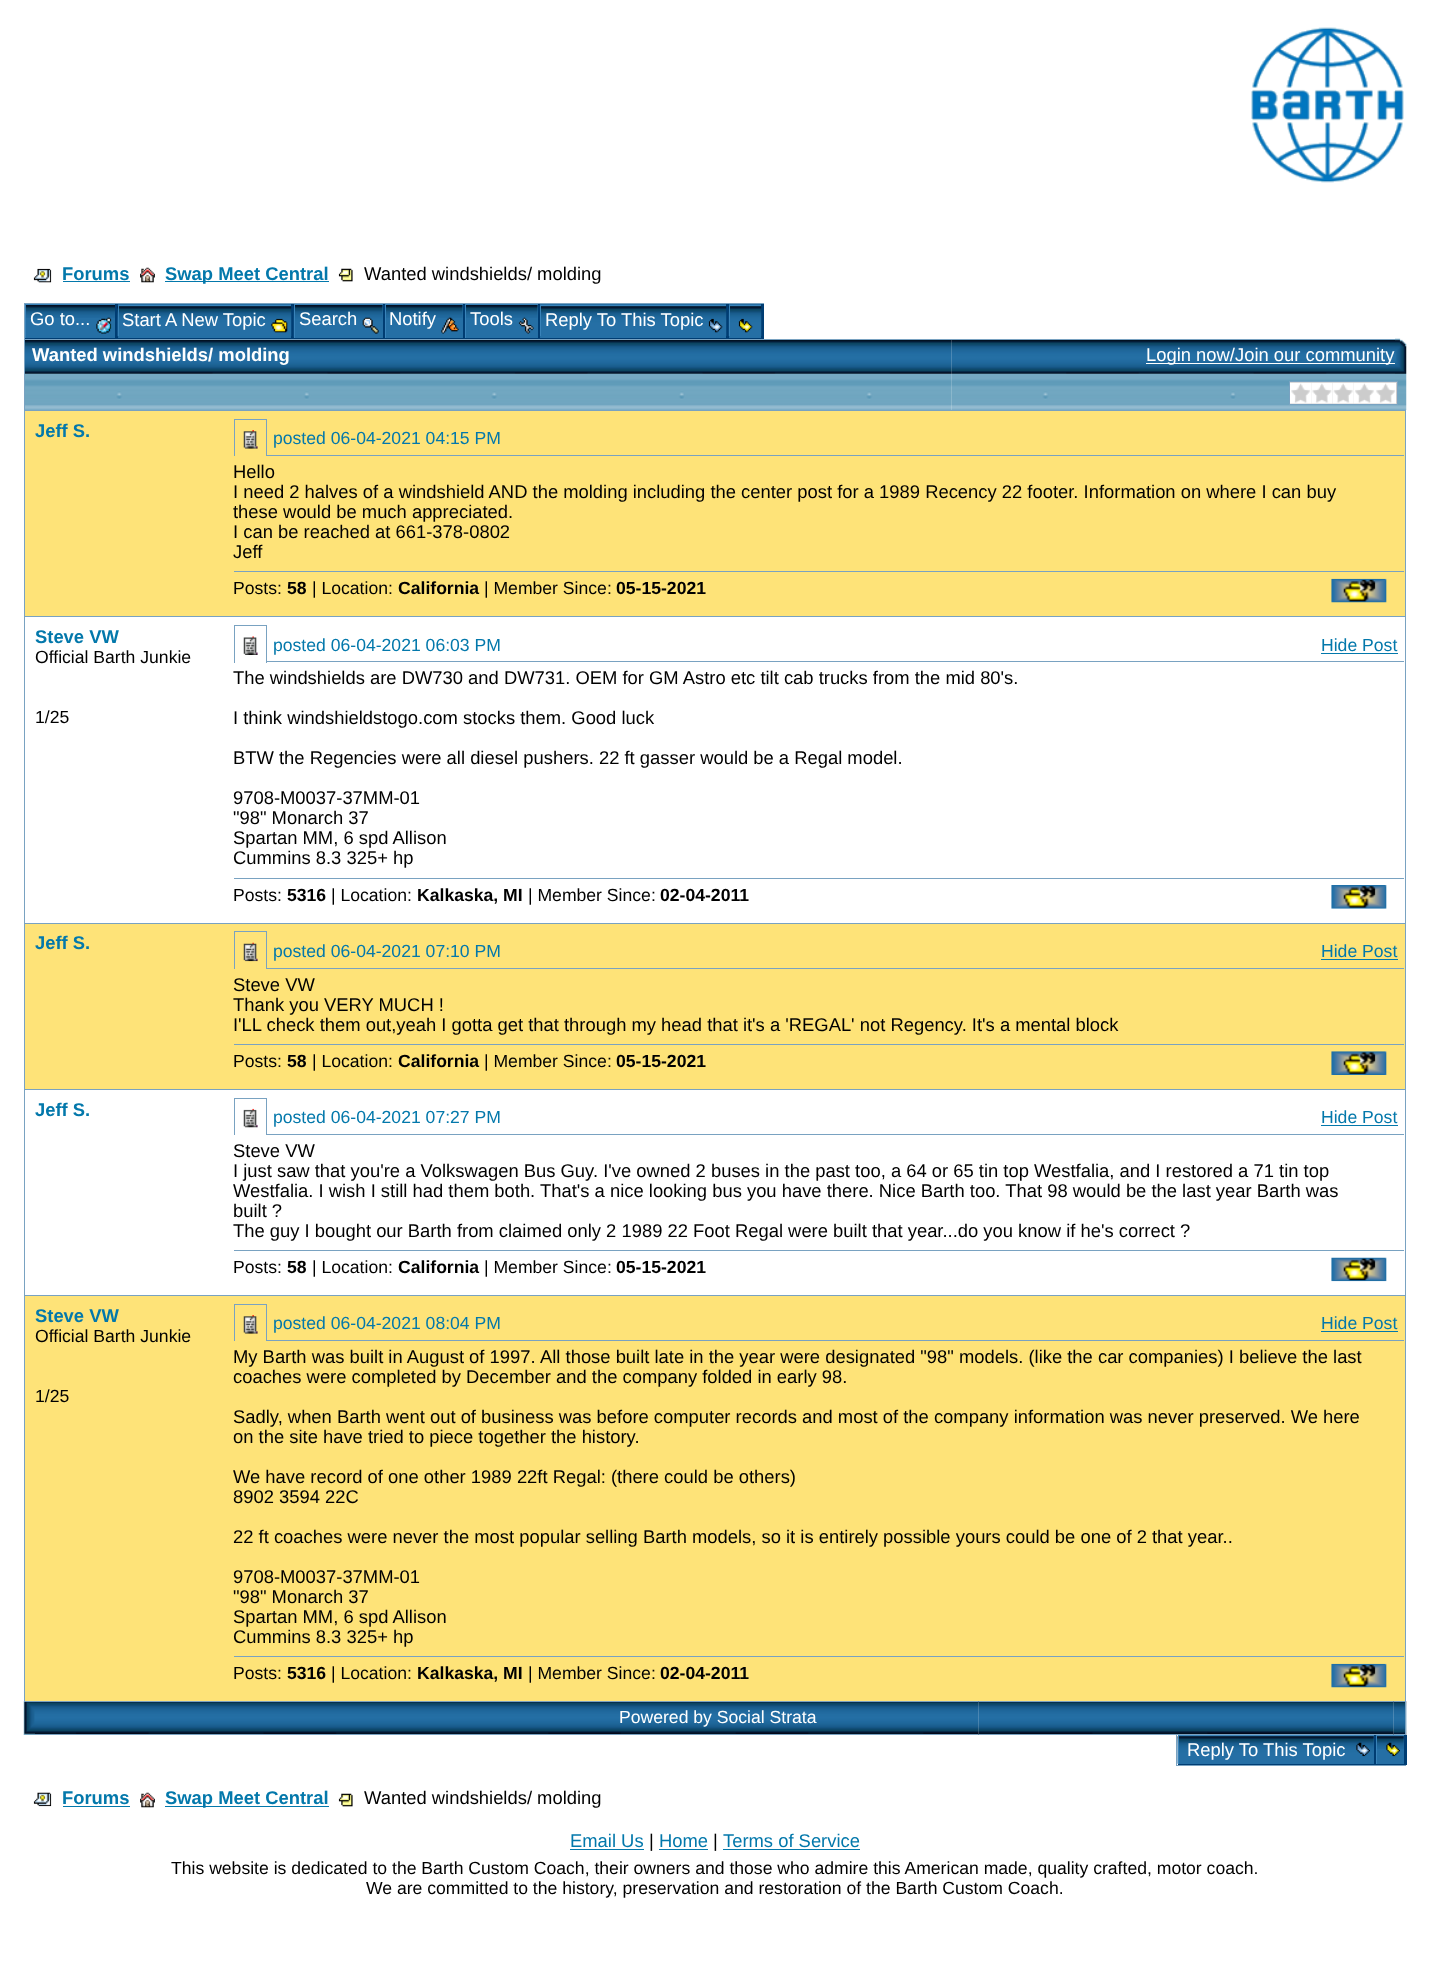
async function draw(canvas) {
  canvas.width = 1429
  canvas.height = 1964
  const ctx = canvas.getContext('2d')
  ctx.miterLimit = 4
  ctx.fontKerning = 'normal'
  async function loadImage(src) {
    const img = new Image()
    img.src = src
    await img.decode()
    return img
  }

  ctx.fillStyle = '#fff'
  ctx.fillRect(0, 0, 1429, 1964)
  ctx.drawImage(await loadImage('image0.png'), 1251, 27, 153, 156)
  ctx.drawImage(await loadImage('image1.png'), 33, 268, 19, 15)
  ctx.font = 'bold 18.4px Liberation Sans'
  ctx.fillStyle = '#0378ab'
  ctx.fillText('Forums', 62, 280)
  ctx.fillRect(63, 281, 67, 1)
  ctx.drawImage(await loadImage('image2.png'), 140, 267, 15, 16)
  ctx.fillRect(165, 281, 164, 1)
  ctx.fillText('Swap Meet Central', 165, 280)
  ctx.drawImage(await loadImage('image3.png'), 338, 268, 15, 14)
  ctx.font = '18.4px Liberation Sans'
  ctx.fillStyle = '#000'
  ctx.fillText('Wanted windshields/ molding', 364, 280)
  ctx.fillStyle = '#79a2c1'
  ctx.fillRect(24, 303, 740, 1)
  ctx.fillRect(24, 303, 1, 107)
  ctx.fillStyle = '#256fa5'
  ctx.fillRect(26, 318, 89, 20)
  ctx.fillStyle = '#003d73'
  ctx.fillRect(115, 304, 3, 35)
  ctx.fillRect(25, 338, 93, 1)
  ctx.drawImage(await loadImage('image4.png'), 26, 305, 89, 13)
  ctx.fillStyle = '#3983b9'
  ctx.fillRect(25, 304, 90, 1)
  ctx.fillRect(25, 304, 1, 34)
  ctx.fillStyle = '#fff'
  ctx.fillText('Go to...', 30, 325)
  ctx.drawImage(await loadImage('image5.png'), 96, 317, 16, 17)
  ctx.fillStyle = '#256fa5'
  ctx.fillRect(118, 304, 173, 34)
  ctx.fillStyle = '#003d73'
  ctx.fillRect(291, 304, 3, 35)
  ctx.fillRect(118, 338, 176, 1)
  ctx.drawImage(await loadImage('image6.png'), 117, 306, 175, 31)
  ctx.fillStyle = '#3983b9'
  ctx.fillRect(118, 305, 173, 1)
  ctx.fillRect(118, 305, 1, 31)
  ctx.fillStyle = '#fff'
  ctx.fillText('Start A New Topic', 122, 326)
  ctx.drawImage(await loadImage('image7.png'), 271, 318, 17, 15)
  ctx.fillStyle = '#256fa5'
  ctx.fillRect(295, 305, 88, 33)
  ctx.fillStyle = '#003d73'
  ctx.fillRect(383, 304, 2, 35)
  ctx.fillRect(294, 338, 91, 1)
  ctx.drawImage(await loadImage('image8.png'), 293, 305, 90, 33)
  ctx.fillStyle = '#3983b9'
  ctx.fillRect(294, 304, 89, 1)
  ctx.fillRect(294, 304, 1, 34)
  ctx.fillStyle = '#fff'
  ctx.fillText('Search', 299, 325)
  ctx.drawImage(await loadImage('image9.png'), 362, 317, 17, 17)
  ctx.fillStyle = '#256fa5'
  ctx.fillRect(386, 305, 77, 33)
  ctx.fillStyle = '#003d73'
  ctx.fillRect(463, 304, 2, 35)
  ctx.fillRect(385, 338, 80, 1)
  ctx.drawImage(await loadImage('image10.png'), 386, 305, 77, 13)
  ctx.fillStyle = '#3983b9'
  ctx.fillRect(385, 304, 78, 1)
  ctx.fillRect(385, 304, 1, 34)
  ctx.fillStyle = '#fff'
  ctx.fillText('Notify', 389, 325)
  ctx.drawImage(await loadImage('image11.png'), 441, 317, 18, 17)
  ctx.fillStyle = '#256fa5'
  ctx.fillRect(466, 305, 72, 33)
  ctx.fillStyle = '#003d73'
  ctx.fillRect(538, 304, 2, 35)
  ctx.fillRect(465, 338, 75, 1)
  ctx.drawImage(await loadImage('image12.png'), 466, 305, 72, 13)
  ctx.fillStyle = '#3983b9'
  ctx.fillRect(465, 304, 73, 1)
  ctx.fillRect(465, 304, 1, 34)
  ctx.fillStyle = '#fff'
  ctx.fillText('Tools', 470, 325)
  ctx.drawImage(await loadImage('image13.png'), 518, 317, 16, 17)
  ctx.fillStyle = '#256fa5'
  ctx.fillRect(540, 304, 186, 34)
  ctx.fillStyle = '#003d73'
  ctx.fillRect(726, 304, 3, 35)
  ctx.fillRect(540, 338, 189, 1)
  ctx.drawImage(await loadImage('image14.png'), 541, 306, 186, 30)
  ctx.fillStyle = '#3983b9'
  ctx.fillRect(540, 305, 186, 1)
  ctx.fillRect(540, 305, 1, 31)
  ctx.fillStyle = '#fff'
  ctx.fillText('Reply To This Topic', 545, 326)
  ctx.drawImage(await loadImage('image15.png'), 708, 318, 15, 15)
  ctx.fillStyle = '#256fa5'
  ctx.fillRect(729, 304, 32, 34)
  ctx.fillStyle = '#003d73'
  ctx.fillRect(761, 304, 3, 35)
  ctx.fillRect(729, 338, 35, 1)
  ctx.drawImage(await loadImage('image16.png'), 728, 306, 34, 30)
  ctx.fillStyle = '#3983b9'
  ctx.fillRect(729, 305, 32, 1)
  ctx.fillRect(729, 305, 1, 31)
  ctx.drawImage(await loadImage('image17.png'), 738, 318, 15, 15)
  ctx.drawImage(await loadImage('image18.png'), 25, 340, 927, 70)
  ctx.fillStyle = '#79a2c1'
  ctx.fillRect(25, 339, 1370, 1)
  ctx.font = 'bold 18.4px Liberation Sans'
  ctx.fillStyle = '#fff'
  ctx.fillText('Wanted windshields/ molding', 32, 361)
  ctx.drawImage(await loadImage('image19.png'), 951, 340, 444, 70)
  ctx.fillRect(1146, 363, 249, 1)
  ctx.font = '18.4px Liberation Sans'
  ctx.fillText('Login now/Join our community', 1146, 361)
  ctx.drawImage(await loadImage('image25.png'), 1395, 338, 12, 72)
  ctx.fillStyle = '#ccc'
  ctx.beginPath()
  ctx.rect(1289.5, 381.5, 108, 23)
  ctx.fill()
  ctx.strokeStyle = '#79a2c1'
  ctx.stroke()
  ctx.drawImage(await loadImage('image20.png'), 1290, 382, 22, 22)
  ctx.drawImage(await loadImage('image21.png'), 1311, 382, 22, 22)
  ctx.drawImage(await loadImage('image22.png'), 1332, 382, 22, 22)
  ctx.drawImage(await loadImage('image23.png'), 1353, 382, 22, 22)
  ctx.drawImage(await loadImage('image24.png'), 1375, 382, 21, 22)
  ctx.fillStyle = '#fee378'
  ctx.fillRect(25, 411, 1380, 205)
  ctx.fillStyle = '#79a2c1'
  ctx.fillRect(24, 410, 1382, 1)
  ctx.fillRect(1405, 410, 1, 206)
  ctx.fillRect(24, 410, 1, 206)
  ctx.font = 'bold 18.4px Liberation Sans'
  ctx.fillStyle = '#0378ab'
  ctx.fillText('Jeff S.', 35, 437)
  ctx.fillStyle = '#79a2c1'
  ctx.fillRect(234, 419, 32, 1)
  ctx.fillRect(234, 419, 1, 37)
  ctx.drawImage(await loadImage('image26.png'), 243, 430, 15, 19)
  ctx.fillRect(266, 455, 1138, 1)
  ctx.fillRect(266, 419, 1, 37)
  ctx.font = '17.6px Liberation Sans'
  ctx.fillStyle = '#0378ab'
  ctx.fillText('posted 06-04-2021 04:15 PM', 273, 444)
  ctx.font = '18.4px Liberation Sans'
  ctx.fillStyle = '#000'
  ctx.fillText('Hello', 233, 478)
  ctx.fillText('I need 2 halves of a windshield AND the molding including the center post for a 1989 Recency 22 footer. Information on where I can buy', 233, 498)
  ctx.fillText('these would be much appreciated.', 233, 518)
  ctx.fillText('I can be reached at 661-378-0802', 233, 538)
  ctx.fillText('Jeff', 233, 558)
  ctx.fillStyle = '#79a2c1'
  ctx.fillRect(234, 571, 1170, 1)
  ctx.font = '17.6px Liberation Sans'
  ctx.fillStyle = '#000'
  ctx.fillText('Posts:', 233, 594)
  ctx.font = 'bold 17.6px Liberation Sans'
  ctx.fillText('58', 287, 594)
  ctx.font = '17.6px Liberation Sans'
  ctx.fillText('| Location:', 312, 594)
  ctx.font = 'bold 17.6px Liberation Sans'
  ctx.fillText('California', 398, 594)
  ctx.font = '17.6px Liberation Sans'
  ctx.fillText('| Member Since:', 484, 594)
  ctx.font = 'bold 17.6px Liberation Sans'
  ctx.fillText('05-15-2021', 616, 594)
  ctx.drawImage(await loadImage('image27.png'), 1331, 578, 56, 25)
  ctx.fillStyle = '#79a2c1'
  ctx.fillRect(24, 616, 1382, 1)
  ctx.fillRect(1405, 616, 1, 307)
  ctx.fillRect(24, 616, 1, 307)
  ctx.font = 'bold 18.4px Liberation Sans'
  ctx.fillStyle = '#0378ab'
  ctx.fillText('Steve VW', 35, 643)
  ctx.font = '17.6px Liberation Sans'
  ctx.fillStyle = '#000'
  ctx.fillText('Official Barth Junkie', 35, 663)
  ctx.fillText('1/25', 35, 723)
  ctx.fillStyle = '#79a2c1'
  ctx.fillRect(234, 625, 32, 1)
  ctx.fillRect(234, 625, 1, 38)
  ctx.drawImage(await loadImage('image28.png'), 243, 636, 15, 19)
  ctx.fillRect(266, 661, 1138, 1)
  ctx.fillRect(266, 625, 1, 38)
  ctx.fillStyle = '#0378ab'
  ctx.fillText('posted 06-04-2021 06:03 PM', 273, 651)
  ctx.fillText('Hide Post', 1321, 651)
  ctx.fillRect(1321, 653, 77, 1)
  ctx.font = '18.4px Liberation Sans'
  ctx.fillStyle = '#000'
  ctx.fillText('The windshields are DW730 and DW731. OEM for GM Astro etc tilt cab trucks from the mid 80\'s.', 233, 684)
  ctx.fillText('I think windshieldstogo.com stocks them. Good luck', 233, 724)
  ctx.fillText('BTW the Regencies were all diesel pushers. 22 ft gasser would be a Regal model.', 233, 764)
  ctx.fillText('9708-M0037-37MM-01', 233, 804)
  ctx.fillText('"98" Monarch 37', 233, 824)
  ctx.fillText('Spartan MM, 6 spd Allison', 233, 844)
  ctx.fillText('Cummins 8.3 325+ hp', 233, 864)
  ctx.fillStyle = '#79a2c1'
  ctx.fillRect(234, 878, 1170, 1)
  ctx.font = '17.6px Liberation Sans'
  ctx.fillStyle = '#000'
  ctx.fillText('Posts:', 233, 901)
  ctx.font = 'bold 17.6px Liberation Sans'
  ctx.fillText('5316', 287, 901)
  ctx.font = '17.6px Liberation Sans'
  ctx.fillText('| Location:', 331, 901)
  ctx.font = 'bold 17.6px Liberation Sans'
  ctx.fillText('Kalkaska, MI', 417, 901)
  ctx.font = '17.6px Liberation Sans'
  ctx.fillText('| Member Since:', 528, 901)
  ctx.font = 'bold 17.6px Liberation Sans'
  ctx.fillText('02-04-2011', 660, 901)
  ctx.drawImage(await loadImage('image29.png'), 1331, 885, 56, 24)
  ctx.fillStyle = '#fee378'
  ctx.fillRect(25, 924, 1380, 165)
  ctx.fillStyle = '#79a2c1'
  ctx.fillRect(24, 923, 1382, 1)
  ctx.fillRect(1405, 923, 1, 166)
  ctx.fillRect(24, 923, 1, 166)
  ctx.font = 'bold 18.4px Liberation Sans'
  ctx.fillStyle = '#0378ab'
  ctx.fillText('Jeff S.', 35, 949)
  ctx.fillStyle = '#79a2c1'
  ctx.fillRect(234, 931, 32, 1)
  ctx.fillRect(234, 931, 1, 38)
  ctx.drawImage(await loadImage('image30.png'), 243, 942, 15, 20)
  ctx.fillRect(266, 968, 1138, 1)
  ctx.fillRect(266, 931, 1, 38)
  ctx.font = '17.6px Liberation Sans'
  ctx.fillStyle = '#0378ab'
  ctx.fillText('posted 06-04-2021 07:10 PM', 273, 957)
  ctx.fillText('Hide Post', 1321, 957)
  ctx.fillRect(1321, 959, 77, 1)
  ctx.font = '18.4px Liberation Sans'
  ctx.fillStyle = '#000'
  ctx.fillText('Steve VW', 233, 991)
  ctx.fillText('Thank you VERY MUCH !', 233, 1011)
  ctx.fillText('I\'LL check them out,yeah I gotta get that through my head that it\'s a \'REGAL\' not Regency. It\'s a mental block', 233, 1031)
  ctx.fillStyle = '#79a2c1'
  ctx.fillRect(234, 1044, 1170, 1)
  ctx.font = '17.6px Liberation Sans'
  ctx.fillStyle = '#000'
  ctx.fillText('Posts:', 233, 1067)
  ctx.font = 'bold 17.6px Liberation Sans'
  ctx.fillText('58', 287, 1067)
  ctx.font = '17.6px Liberation Sans'
  ctx.fillText('| Location:', 312, 1067)
  ctx.font = 'bold 17.6px Liberation Sans'
  ctx.fillText('California', 398, 1067)
  ctx.font = '17.6px Liberation Sans'
  ctx.fillText('| Member Since:', 484, 1067)
  ctx.font = 'bold 17.6px Liberation Sans'
  ctx.fillText('05-15-2021', 616, 1067)
  ctx.drawImage(await loadImage('image31.png'), 1331, 1051, 56, 24)
  ctx.fillStyle = '#79a2c1'
  ctx.fillRect(24, 1089, 1382, 1)
  ctx.fillRect(1405, 1089, 1, 206)
  ctx.fillRect(24, 1089, 1, 206)
  ctx.font = 'bold 18.4px Liberation Sans'
  ctx.fillStyle = '#0378ab'
  ctx.fillText('Jeff S.', 35, 1116)
  ctx.fillStyle = '#79a2c1'
  ctx.fillRect(234, 1098, 32, 1)
  ctx.fillRect(234, 1098, 1, 37)
  ctx.drawImage(await loadImage('image32.png'), 243, 1108, 15, 20)
  ctx.fillRect(266, 1134, 1138, 1)
  ctx.fillRect(266, 1098, 1, 37)
  ctx.font = '17.6px Liberation Sans'
  ctx.fillStyle = '#0378ab'
  ctx.fillText('posted 06-04-2021 07:27 PM', 273, 1123)
  ctx.fillText('Hide Post', 1321, 1123)
  ctx.fillRect(1321, 1125, 77, 1)
  ctx.font = '18.4px Liberation Sans'
  ctx.fillStyle = '#000'
  ctx.fillText('Steve VW', 233, 1157)
  ctx.fillText('I just saw that you\'re a Volkswagen Bus Guy. I\'ve owned 2 buses in the past too, a 64 or 65 tin top Westfalia, and I restored a 71 tin top', 233, 1177)
  ctx.fillText('Westfalia. I wish I still had them both. That\'s a nice looking bus you have there. Nice Barth too. That 98 would be the last year Barth was', 233, 1197)
  ctx.fillText('built ?', 233, 1217)
  ctx.fillText('The guy I bought our Barth from claimed only 2 1989 22 Foot Regal were built that year...do you know if he\'s correct ?', 233, 1237)
  ctx.fillStyle = '#79a2c1'
  ctx.fillRect(234, 1250, 1170, 1)
  ctx.font = '17.6px Liberation Sans'
  ctx.fillStyle = '#000'
  ctx.fillText('Posts:', 233, 1273)
  ctx.font = 'bold 17.6px Liberation Sans'
  ctx.fillText('58', 287, 1273)
  ctx.font = '17.6px Liberation Sans'
  ctx.fillText('| Location:', 312, 1273)
  ctx.font = 'bold 17.6px Liberation Sans'
  ctx.fillText('California', 398, 1273)
  ctx.font = '17.6px Liberation Sans'
  ctx.fillText('| Member Since:', 484, 1273)
  ctx.font = 'bold 17.6px Liberation Sans'
  ctx.fillText('05-15-2021', 616, 1273)
  ctx.drawImage(await loadImage('image33.png'), 1331, 1257, 56, 25)
  ctx.fillStyle = '#fee378'
  ctx.fillRect(25, 1296, 1380, 405)
  ctx.fillStyle = '#79a2c1'
  ctx.fillRect(24, 1295, 1382, 1)
  ctx.fillRect(1405, 1295, 1, 406)
  ctx.fillRect(24, 1295, 1, 406)
  ctx.font = 'bold 18.4px Liberation Sans'
  ctx.fillStyle = '#0378ab'
  ctx.fillText('Steve VW', 35, 1322)
  ctx.font = '17.6px Liberation Sans'
  ctx.fillStyle = '#000'
  ctx.fillText('Official Barth Junkie', 35, 1342)
  ctx.fillText('1/25', 35, 1402)
  ctx.fillStyle = '#79a2c1'
  ctx.fillRect(234, 1304, 32, 1)
  ctx.fillRect(234, 1304, 1, 37)
  ctx.drawImage(await loadImage('image26.png'), 243, 1315, 15, 19)
  ctx.fillRect(266, 1340, 1138, 1)
  ctx.fillRect(266, 1304, 1, 37)
  ctx.fillStyle = '#0378ab'
  ctx.fillText('posted 06-04-2021 08:04 PM', 273, 1329)
  ctx.fillText('Hide Post', 1321, 1329)
  ctx.fillRect(1321, 1331, 77, 1)
  ctx.font = '18.4px Liberation Sans'
  ctx.fillStyle = '#000'
  ctx.fillText('My Barth was built in August of 1997.', 233, 1363)
  ctx.fillText('All those built late in the year were designated "98" models. (like the car companies) I believe the last', 540, 1363)
  ctx.fillText('coaches were completed by December and the company folded in early 98.', 233, 1383)
  ctx.fillText('Sadly, when Barth went out of business was before computer records and most of the company information was never preserved. We here', 233, 1423)
  ctx.fillText('on the site have tried to piece together the history.', 233, 1443)
  ctx.fillText('We have record of one other 1989 22ft Regal: (there could be others)', 233, 1483)
  ctx.fillText('8902 3594 22C', 233, 1503)
  ctx.fillText('22 ft coaches were never the most popular selling Barth models, so it is entirely possible yours could be one of 2 that year..', 233, 1543)
  ctx.fillText('9708-M0037-37MM-01', 233, 1583)
  ctx.fillText('"98" Monarch 37', 233, 1603)
  ctx.fillText('Spartan MM, 6 spd Allison', 233, 1623)
  ctx.fillText('Cummins 8.3 325+ hp', 233, 1643)
  ctx.fillStyle = '#79a2c1'
  ctx.fillRect(234, 1656, 1170, 1)
  ctx.font = '17.6px Liberation Sans'
  ctx.fillStyle = '#000'
  ctx.fillText('Posts:', 233, 1679)
  ctx.font = 'bold 17.6px Liberation Sans'
  ctx.fillText('5316', 287, 1679)
  ctx.font = '17.6px Liberation Sans'
  ctx.fillText('| Location:', 331, 1679)
  ctx.font = 'bold 17.6px Liberation Sans'
  ctx.fillText('Kalkaska, MI', 417, 1679)
  ctx.font = '17.6px Liberation Sans'
  ctx.fillText('| Member Since:', 528, 1679)
  ctx.font = 'bold 17.6px Liberation Sans'
  ctx.fillText('02-04-2011', 660, 1679)
  ctx.drawImage(await loadImage('image34.png'), 1331, 1663, 56, 25)
  ctx.drawImage(await loadImage('image35.png'), 23, 1701, 12, 34)
  ctx.fillStyle = '#79a2c1'
  ctx.fillRect(24, 1701, 955, 1)
  ctx.fillRect(35, 1734, 944, 1)
  ctx.drawImage(await loadImage('image39.png'), 450, 1702, 529, 32)
  ctx.drawImage(await loadImage('image36.png'), 978, 1701, 416, 34)
  ctx.fillRect(979, 1701, 415, 1)
  ctx.fillRect(979, 1734, 415, 1)
  ctx.drawImage(await loadImage('image37.png'), 1393, 1701, 14, 34)
  ctx.fillRect(1394, 1701, 12, 1)
  ctx.fillRect(1405, 1701, 1, 34)
  ctx.fillRect(1394, 1734, 12, 1)
  ctx.drawImage(await loadImage('image38.png'), 35, 1702, 415, 32)
  ctx.font = '17.6px Liberation Sans'
  ctx.fillStyle = '#fff'
  ctx.fillText('Powered by Social Strata', 619, 1723)
  ctx.fillStyle = '#79a2c1'
  ctx.fillRect(1176, 1765, 230, 1)
  ctx.fillRect(1176, 1735, 1, 31)
  ctx.fillStyle = '#256fa5'
  ctx.fillRect(1179, 1736, 195, 28)
  ctx.fillStyle = '#003d73'
  ctx.fillRect(1374, 1735, 2, 30)
  ctx.fillRect(1178, 1764, 198, 1)
  ctx.drawImage(await loadImage('image40.png'), 1177, 1736, 197, 28)
  ctx.fillStyle = '#3983b9'
  ctx.fillRect(1178, 1735, 196, 1)
  ctx.fillRect(1178, 1735, 1, 29)
  ctx.font = '18.4px Liberation Sans'
  ctx.fillStyle = '#fff'
  ctx.fillText('Reply To This Topic', 1187, 1756)
  ctx.drawImage(await loadImage('image41.png'), 1356, 1742, 14, 15)
  ctx.fillStyle = '#256fa5'
  ctx.fillRect(1377, 1736, 27, 28)
  ctx.fillStyle = '#003d73'
  ctx.fillRect(1404, 1735, 3, 30)
  ctx.fillRect(1376, 1764, 30, 1)
  ctx.drawImage(await loadImage('image42.png'), 1377, 1736, 27, 13)
  ctx.fillStyle = '#3983b9'
  ctx.fillRect(1376, 1735, 28, 1)
  ctx.fillRect(1376, 1735, 1, 29)
  ctx.drawImage(await loadImage('image43.png'), 1386, 1742, 14, 15)
  ctx.drawImage(await loadImage('image44.png'), 33, 1792, 19, 15)
  ctx.font = 'bold 18.4px Liberation Sans'
  ctx.fillStyle = '#0378ab'
  ctx.fillText('Forums', 62, 1804)
  ctx.fillRect(63, 1806, 67, 1)
  ctx.drawImage(await loadImage('image2.png'), 140, 1792, 15, 16)
  ctx.fillRect(165, 1806, 164, 1)
  ctx.fillText('Swap Meet Central', 165, 1804)
  ctx.drawImage(await loadImage('image3.png'), 338, 1793, 15, 14)
  ctx.font = '18.4px Liberation Sans'
  ctx.fillStyle = '#000'
  ctx.fillText('Wanted windshields/ molding', 364, 1804)
  ctx.fillStyle = '#0378ab'
  ctx.fillText('Email Us', 570, 1847)
  ctx.fillRect(570, 1849, 74, 1)
  ctx.fillStyle = '#000'
  ctx.fillText('|', 649, 1847)
  ctx.fillStyle = '#0378ab'
  ctx.fillText('Home', 659, 1847)
  ctx.fillRect(659, 1849, 49, 1)
  ctx.fillStyle = '#000'
  ctx.fillText('|', 713, 1847)
  ctx.fillStyle = '#0378ab'
  ctx.fillText('Terms of Service', 723, 1847)
  ctx.fillRect(723, 1849, 137, 1)
  ctx.font = '17.6px Liberation Sans'
  ctx.fillStyle = '#000'
  ctx.fillText('This website is dedicated to the Barth Custom Coach, their owners and those who admire this American made, quality crafted, motor coach.', 171, 1874)
  ctx.fillText('We are committed to the history, preservation and restoration of the Barth Custom Coach.', 366, 1894)
}

draw(document.querySelector('canvas'))
